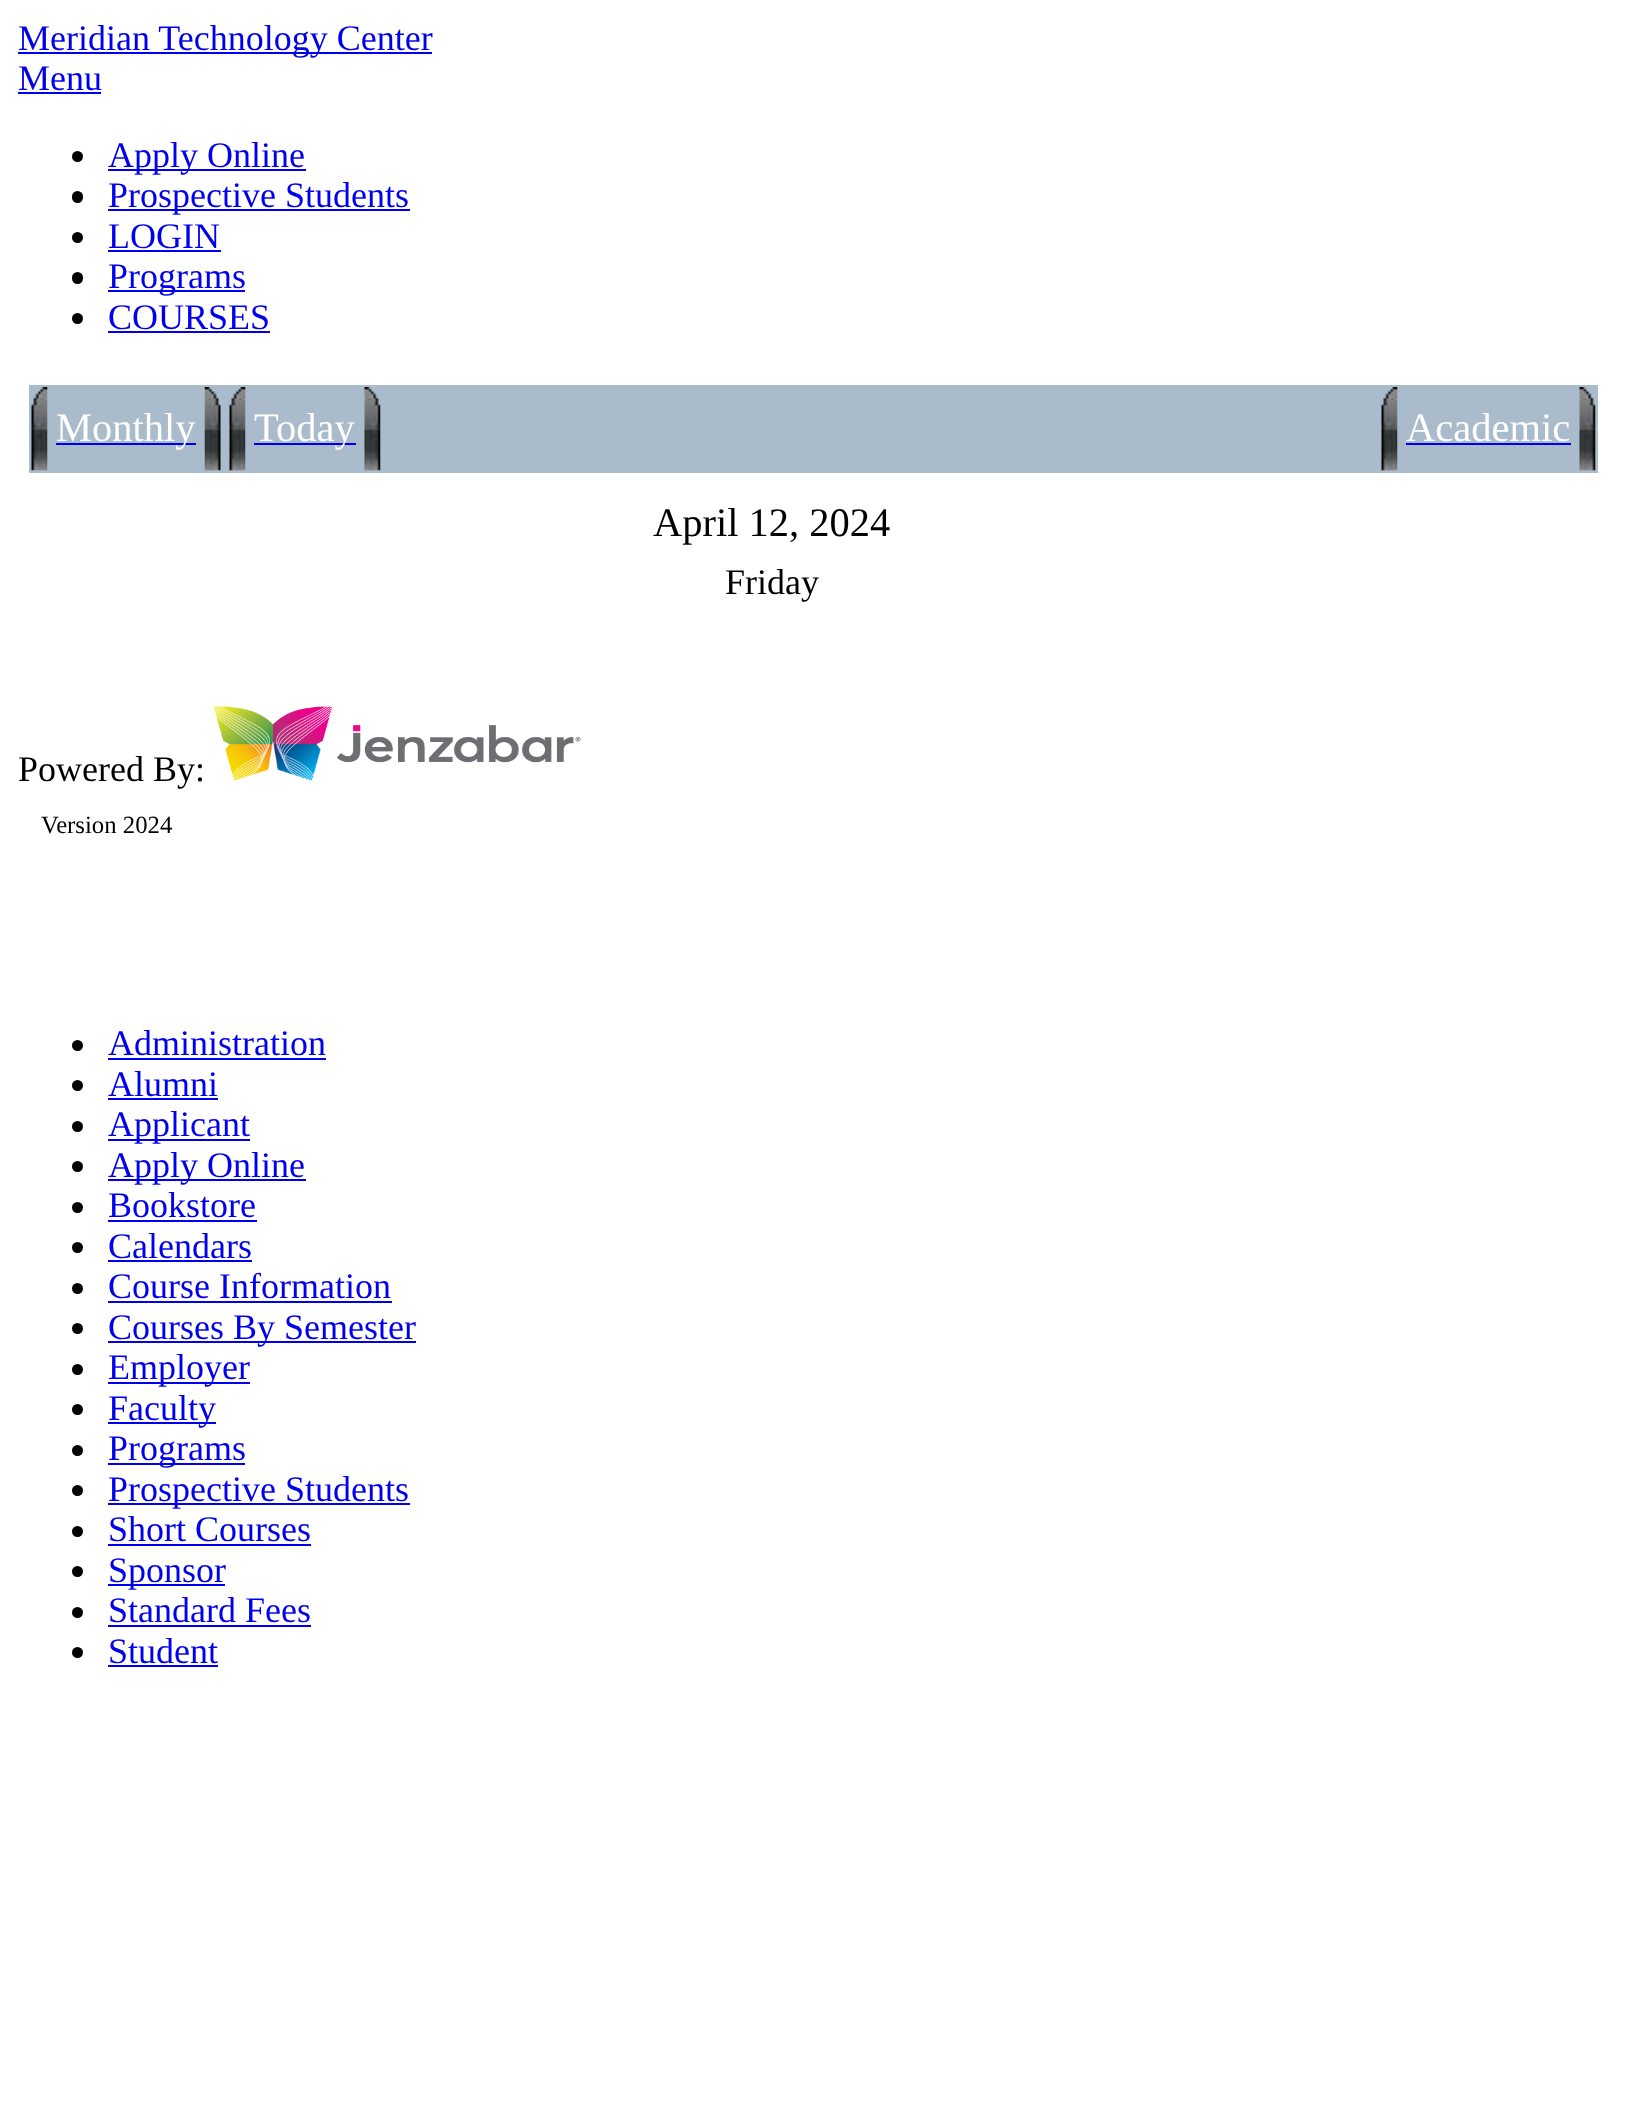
async function draw(canvas) {
  canvas.width = 1626
  canvas.height = 2124
  const ctx = canvas.getContext('2d')
  ctx.miterLimit = 4
  ctx.fontKerning = 'normal'
  async function loadImage(src) {
    const img = new Image()
    img.src = src
    await img.decode()
    return img
  }

  ctx.fillStyle = '#fff'
  ctx.fillRect(0, 0, 1626, 2124)
  ctx.fillStyle = '#00e'
  ctx.fillRect(18, 52, 414, 2)
  ctx.font = '36px Liberation Serif'
  ctx.fillText('Meridian Technology Center', 18, 50)
  ctx.fillText('Menu', 18, 90)
  ctx.fillRect(18, 92, 83, 2)
  ctx.fillStyle = '#000'
  ctx.beginPath()
  ctx.arc(77.5, 156.5, 5.5, 0, 2 * Math.PI)
  ctx.fill()
  ctx.fillStyle = '#00e'
  ctx.fillRect(108, 169, 198, 2)
  ctx.fillText('Apply Online', 108, 167)
  ctx.fillStyle = '#000'
  ctx.beginPath()
  ctx.roundRect(72, 191, 11, 12, 5.5)
  ctx.fill()
  ctx.fillStyle = '#00e'
  ctx.fillRect(108, 209, 302, 2)
  ctx.fillText('Prospective Students', 108, 207)
  ctx.fillStyle = '#000'
  ctx.beginPath()
  ctx.arc(77.5, 237.5, 5.5, 0, 2 * Math.PI)
  ctx.fill()
  ctx.fillStyle = '#00e'
  ctx.fillText('LOGIN', 108, 248)
  ctx.fillRect(108, 250, 113, 2)
  ctx.fillStyle = '#000'
  ctx.beginPath()
  ctx.roundRect(72, 272, 11, 12, 5.5)
  ctx.fill()
  ctx.fillStyle = '#00e'
  ctx.fillRect(108, 290, 137, 2)
  ctx.fillText('Programs', 108, 288)
  ctx.fillStyle = '#000'
  ctx.beginPath()
  ctx.arc(77.5, 318.5, 5.5, 0, 2 * Math.PI)
  ctx.fill()
  ctx.fillStyle = '#00e'
  ctx.fillText('COURSES', 108, 329)
  ctx.fillRect(108, 331, 162, 2)
  ctx.fillStyle = '#abc'
  ctx.fillRect(29, 385, 1569, 88)
  ctx.drawImage(await loadImage('image0.png'), 31, 387, 17, 84)
  ctx.fillStyle = '#00e'
  ctx.fillRect(56, 443, 140, 2)
  ctx.font = '40.5px Liberation Serif'
  ctx.fillStyle = '#fff'
  ctx.fillText('Monthly', 56, 441)
  ctx.drawImage(await loadImage('image1.png'), 204, 387, 17, 84)
  ctx.drawImage(await loadImage('image2.png'), 229, 387, 17, 84)
  ctx.fillStyle = '#00e'
  ctx.fillRect(254, 443, 102, 2)
  ctx.fillStyle = '#fff'
  ctx.fillText('Today', 254, 441)
  ctx.drawImage(await loadImage('image3.png'), 364, 387, 17, 84)
  ctx.drawImage(await loadImage('image2.png'), 1381, 387, 17, 84)
  ctx.fillText('Academic', 1406, 441)
  ctx.fillStyle = '#00e'
  ctx.fillRect(1406, 443, 165, 2)
  ctx.drawImage(await loadImage('image3.png'), 1579, 387, 17, 84)
  ctx.fillStyle = '#000'
  ctx.fillText('April 12, 2024', 653, 536)
  ctx.font = '36px Liberation Serif'
  ctx.fillText('Friday', 725, 594)
  ctx.fillText('Powered By:', 18, 781)
  ctx.drawImage(await loadImage('image4.png'), 213, 706, 368, 75)
  ctx.font = '24.75px Liberation Serif'
  ctx.fillText('Version 2024', 41, 833)
  ctx.beginPath()
  ctx.arc(77.5, 1045.5, 5.5, 0, 2 * Math.PI)
  ctx.fill()
  ctx.font = '36px Liberation Serif'
  ctx.fillStyle = '#00e'
  ctx.fillText('Administration', 108, 1055)
  ctx.fillRect(108, 1058, 218, 2)
  ctx.fillStyle = '#000'
  ctx.beginPath()
  ctx.arc(77.5, 1085.5, 5.5, 0, 2 * Math.PI)
  ctx.fill()
  ctx.fillStyle = '#00e'
  ctx.fillText('Alumni', 108, 1096)
  ctx.fillRect(108, 1098, 110, 2)
  ctx.fillStyle = '#000'
  ctx.beginPath()
  ctx.arc(77.5, 1126.5, 5.5, 0, 2 * Math.PI)
  ctx.fill()
  ctx.fillStyle = '#00e'
  ctx.fillRect(108, 1139, 142, 2)
  ctx.fillText('Applicant', 108, 1136)
  ctx.fillStyle = '#000'
  ctx.beginPath()
  ctx.arc(77.5, 1166.5, 5.5, 0, 2 * Math.PI)
  ctx.fill()
  ctx.fillStyle = '#00e'
  ctx.fillRect(108, 1179, 198, 2)
  ctx.fillText('Apply Online', 108, 1177)
  ctx.fillStyle = '#000'
  ctx.beginPath()
  ctx.arc(77.5, 1207.5, 5.5, 0, 2 * Math.PI)
  ctx.fill()
  ctx.fillStyle = '#00e'
  ctx.fillText('Bookstore', 108, 1217)
  ctx.fillRect(108, 1220, 149, 2)
  ctx.fillStyle = '#000'
  ctx.beginPath()
  ctx.arc(77.5, 1247.5, 5.5, 0, 2 * Math.PI)
  ctx.fill()
  ctx.fillStyle = '#00e'
  ctx.fillText('Calendars', 108, 1258)
  ctx.fillRect(108, 1260, 144, 2)
  ctx.fillStyle = '#000'
  ctx.beginPath()
  ctx.arc(77.5, 1288.5, 5.5, 0, 2 * Math.PI)
  ctx.fill()
  ctx.fillStyle = '#00e'
  ctx.fillText('Course Information', 108, 1298)
  ctx.fillRect(108, 1301, 284, 2)
  ctx.fillStyle = '#000'
  ctx.beginPath()
  ctx.arc(77.5, 1328.5, 5.5, 0, 2 * Math.PI)
  ctx.fill()
  ctx.fillStyle = '#00e'
  ctx.fillRect(108, 1341, 308, 2)
  ctx.fillText('Courses By Semester', 108, 1339)
  ctx.fillStyle = '#000'
  ctx.beginPath()
  ctx.arc(77.5, 1369.5, 5.5, 0, 2 * Math.PI)
  ctx.fill()
  ctx.fillStyle = '#00e'
  ctx.fillRect(108, 1382, 142, 2)
  ctx.fillText('Employer', 108, 1379)
  ctx.fillStyle = '#000'
  ctx.beginPath()
  ctx.arc(77.5, 1409.5, 5.5, 0, 2 * Math.PI)
  ctx.fill()
  ctx.fillStyle = '#00e'
  ctx.fillRect(108, 1422, 108, 2)
  ctx.fillText('Faculty', 108, 1420)
  ctx.fillStyle = '#000'
  ctx.beginPath()
  ctx.arc(77.5, 1450.5, 5.5, 0, 2 * Math.PI)
  ctx.fill()
  ctx.fillStyle = '#00e'
  ctx.fillRect(108, 1463, 137, 2)
  ctx.fillText('Programs', 108, 1460)
  ctx.fillStyle = '#000'
  ctx.beginPath()
  ctx.arc(77.5, 1490.5, 5.5, 0, 2 * Math.PI)
  ctx.fill()
  ctx.fillStyle = '#00e'
  ctx.fillRect(108, 1503, 302, 2)
  ctx.fillText('Prospective Students', 108, 1501)
  ctx.fillStyle = '#000'
  ctx.beginPath()
  ctx.arc(77.5, 1531.5, 5.5, 0, 2 * Math.PI)
  ctx.fill()
  ctx.fillStyle = '#00e'
  ctx.fillText('Short Courses', 108, 1541)
  ctx.fillRect(108, 1544, 203, 2)
  ctx.fillStyle = '#000'
  ctx.beginPath()
  ctx.arc(77.5, 1571.5, 5.5, 0, 2 * Math.PI)
  ctx.fill()
  ctx.fillStyle = '#00e'
  ctx.fillRect(108, 1584, 117, 2)
  ctx.fillText('Sponsor', 108, 1582)
  ctx.fillStyle = '#000'
  ctx.beginPath()
  ctx.arc(77.5, 1612.5, 5.5, 0, 2 * Math.PI)
  ctx.fill()
  ctx.fillStyle = '#00e'
  ctx.fillText('Standard Fees', 108, 1622)
  ctx.fillRect(108, 1625, 203, 2)
  ctx.fillStyle = '#000'
  ctx.beginPath()
  ctx.arc(77.5, 1652.5, 5.5, 0, 2 * Math.PI)
  ctx.fill()
  ctx.fillStyle = '#00e'
  ctx.fillText('Student', 108, 1663)
  ctx.fillRect(108, 1665, 110, 2)
}

draw(document.querySelector('canvas'))
